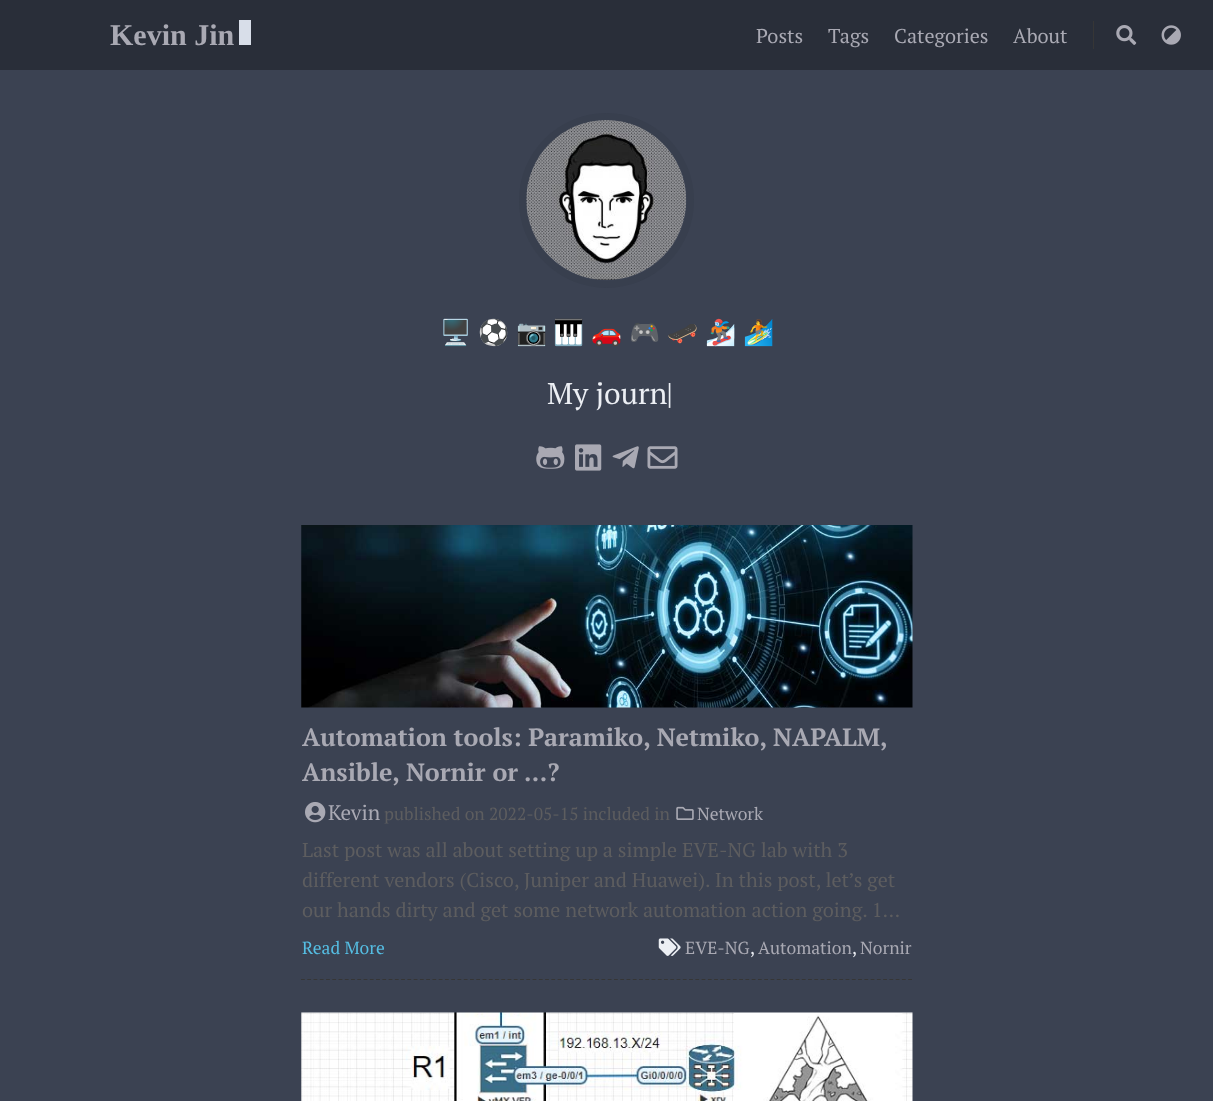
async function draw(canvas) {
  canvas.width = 1213
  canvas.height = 1101
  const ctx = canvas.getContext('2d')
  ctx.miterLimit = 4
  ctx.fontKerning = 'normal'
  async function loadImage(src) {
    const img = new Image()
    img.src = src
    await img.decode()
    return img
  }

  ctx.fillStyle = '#3b4252'
  ctx.fillRect(0, 0, 1213, 1101)
  ctx.fillStyle = '#292e39'
  ctx.fillRect(0, 0, 1213, 70)
  ctx.font = 'bold 30px Liberation Serif'
  ctx.fillStyle = '#a9a9b3'
  ctx.fillText('Kevin Jin', 110, 45)
  ctx.fillStyle = '#d8dee9'
  ctx.fillRect(239, 20, 12, 25)
  ctx.font = '20px PT Serif'
  ctx.fillStyle = '#a9a9b3'
  ctx.fillText('Posts', 756, 43)
  ctx.fillText('Tags', 828, 43)
  ctx.fillText('Categories', 894, 43)
  ctx.fillText('About', 1013, 43)
  ctx.fillStyle = '#363636'
  ctx.fillRect(1093, 21, 1, 28)
  ctx.drawImage(await loadImage('image0.png'), 1116, 25, 21, 20)
  ctx.drawImage(await loadImage('image1.png'), 1161, 25, 20, 20)
  ctx.beginPath()
  ctx.arc(606.5, 200.5, 84, 0, 2 * Math.PI)
  ctx.strokeStyle = '#383f4e'
  ctx.lineWidth = 7
  ctx.stroke()
  ctx.drawImage(await loadImage('image2.png'), 526, 120, 161, 160)
  ctx.font = 'bold 25px Noto Color Emoji'
  ctx.fillStyle = '#eceff4'
  ctx.fillText('🖥️', 440, 341)
  ctx.fillText('⚽', 478, 341)
  ctx.fillText('📷', 516, 341)
  ctx.fillText('🎹', 553, 341)
  ctx.fillText('🚗', 591, 341)
  ctx.fillText('🎮', 629, 341)
  ctx.fillText('🛹', 667, 341)
  ctx.fillText('🏂', 705, 341)
  ctx.fillText('🏄', 743, 341)
  ctx.font = '30px PT Serif'
  ctx.fillText('My journ', 547, 404)
  ctx.fillText('|', 666, 404)
  ctx.drawImage(await loadImage('image3.png'), 536, 446, 29, 23)
  ctx.drawImage(await loadImage('image4.png'), 575, 444, 27, 27)
  ctx.drawImage(await loadImage('image5.png'), 612, 446, 27, 23)
  ctx.drawImage(await loadImage('image6.png'), 647, 446, 31, 23)
  ctx.beginPath()
  ctx.moveTo(301, 979.5)
  ctx.lineTo(912.5, 979.5)
  ctx.strokeStyle = '#363636'
  ctx.lineWidth = 1.2
  ctx.setLineDash([3.75, 2.51])
  ctx.stroke()
  ctx.drawImage(await loadImage('image7.png'), 301, 525, 612, 183)
  ctx.font = 'bold 25px PT Serif'
  ctx.fillStyle = '#a9a9b3'
  ctx.fillText('Automation tools: Paramiko, Netmiko, NAPALM,', 302, 746)
  ctx.fillText('Ansible, Nornir or ...?', 302, 781)
  ctx.drawImage(await loadImage('image8.png'), 305, 802, 21, 21)
  ctx.font = '21px PT Serif'
  ctx.fillText('Kevin', 328, 820)
  ctx.font = '17.5px PT Serif'
  ctx.fillStyle = '#5d5d5f'
  ctx.fillText('published on 2022-05-15 included in', 384, 820)
  ctx.drawImage(await loadImage('image9.png'), 676, 806, 18, 14)
  ctx.fillStyle = '#a9a9b3'
  ctx.fillText('Network', 697, 820)
  ctx.font = '20px PT Serif'
  ctx.fillStyle = '#5d5d5f'
  ctx.fillText('Last post was all about setting up a simple EVE-NG lab with 3', 302, 857)
  ctx.fillText('different vendors (Cisco, Juniper and Huawei). In this post, let’s get', 302, 887)
  ctx.fillText('our hands dirty and get some network automation action going. 1…', 302, 917)
  ctx.font = '17.5px PT Serif'
  ctx.fillStyle = '#55bde2'
  ctx.fillText('Read More', 302, 954)
  ctx.drawImage(await loadImage('image10.png'), 658, 938, 23, 18)
  ctx.fillStyle = '#a9a9b3'
  ctx.fillText('EVE-NG', 685, 954)
  ctx.fillStyle = '#eceff4'
  ctx.fillText(',', 750, 954)
  ctx.fillStyle = '#a9a9b3'
  ctx.fillText('Automation', 758, 954)
  ctx.fillStyle = '#eceff4'
  ctx.fillText(',', 852, 954)
  ctx.fillStyle = '#a9a9b3'
  ctx.fillText('Nornir', 860, 954)
  ctx.drawImage(await loadImage('image11.png'), 301, 1012, 612, 89)
}

draw(document.querySelector('canvas'))
